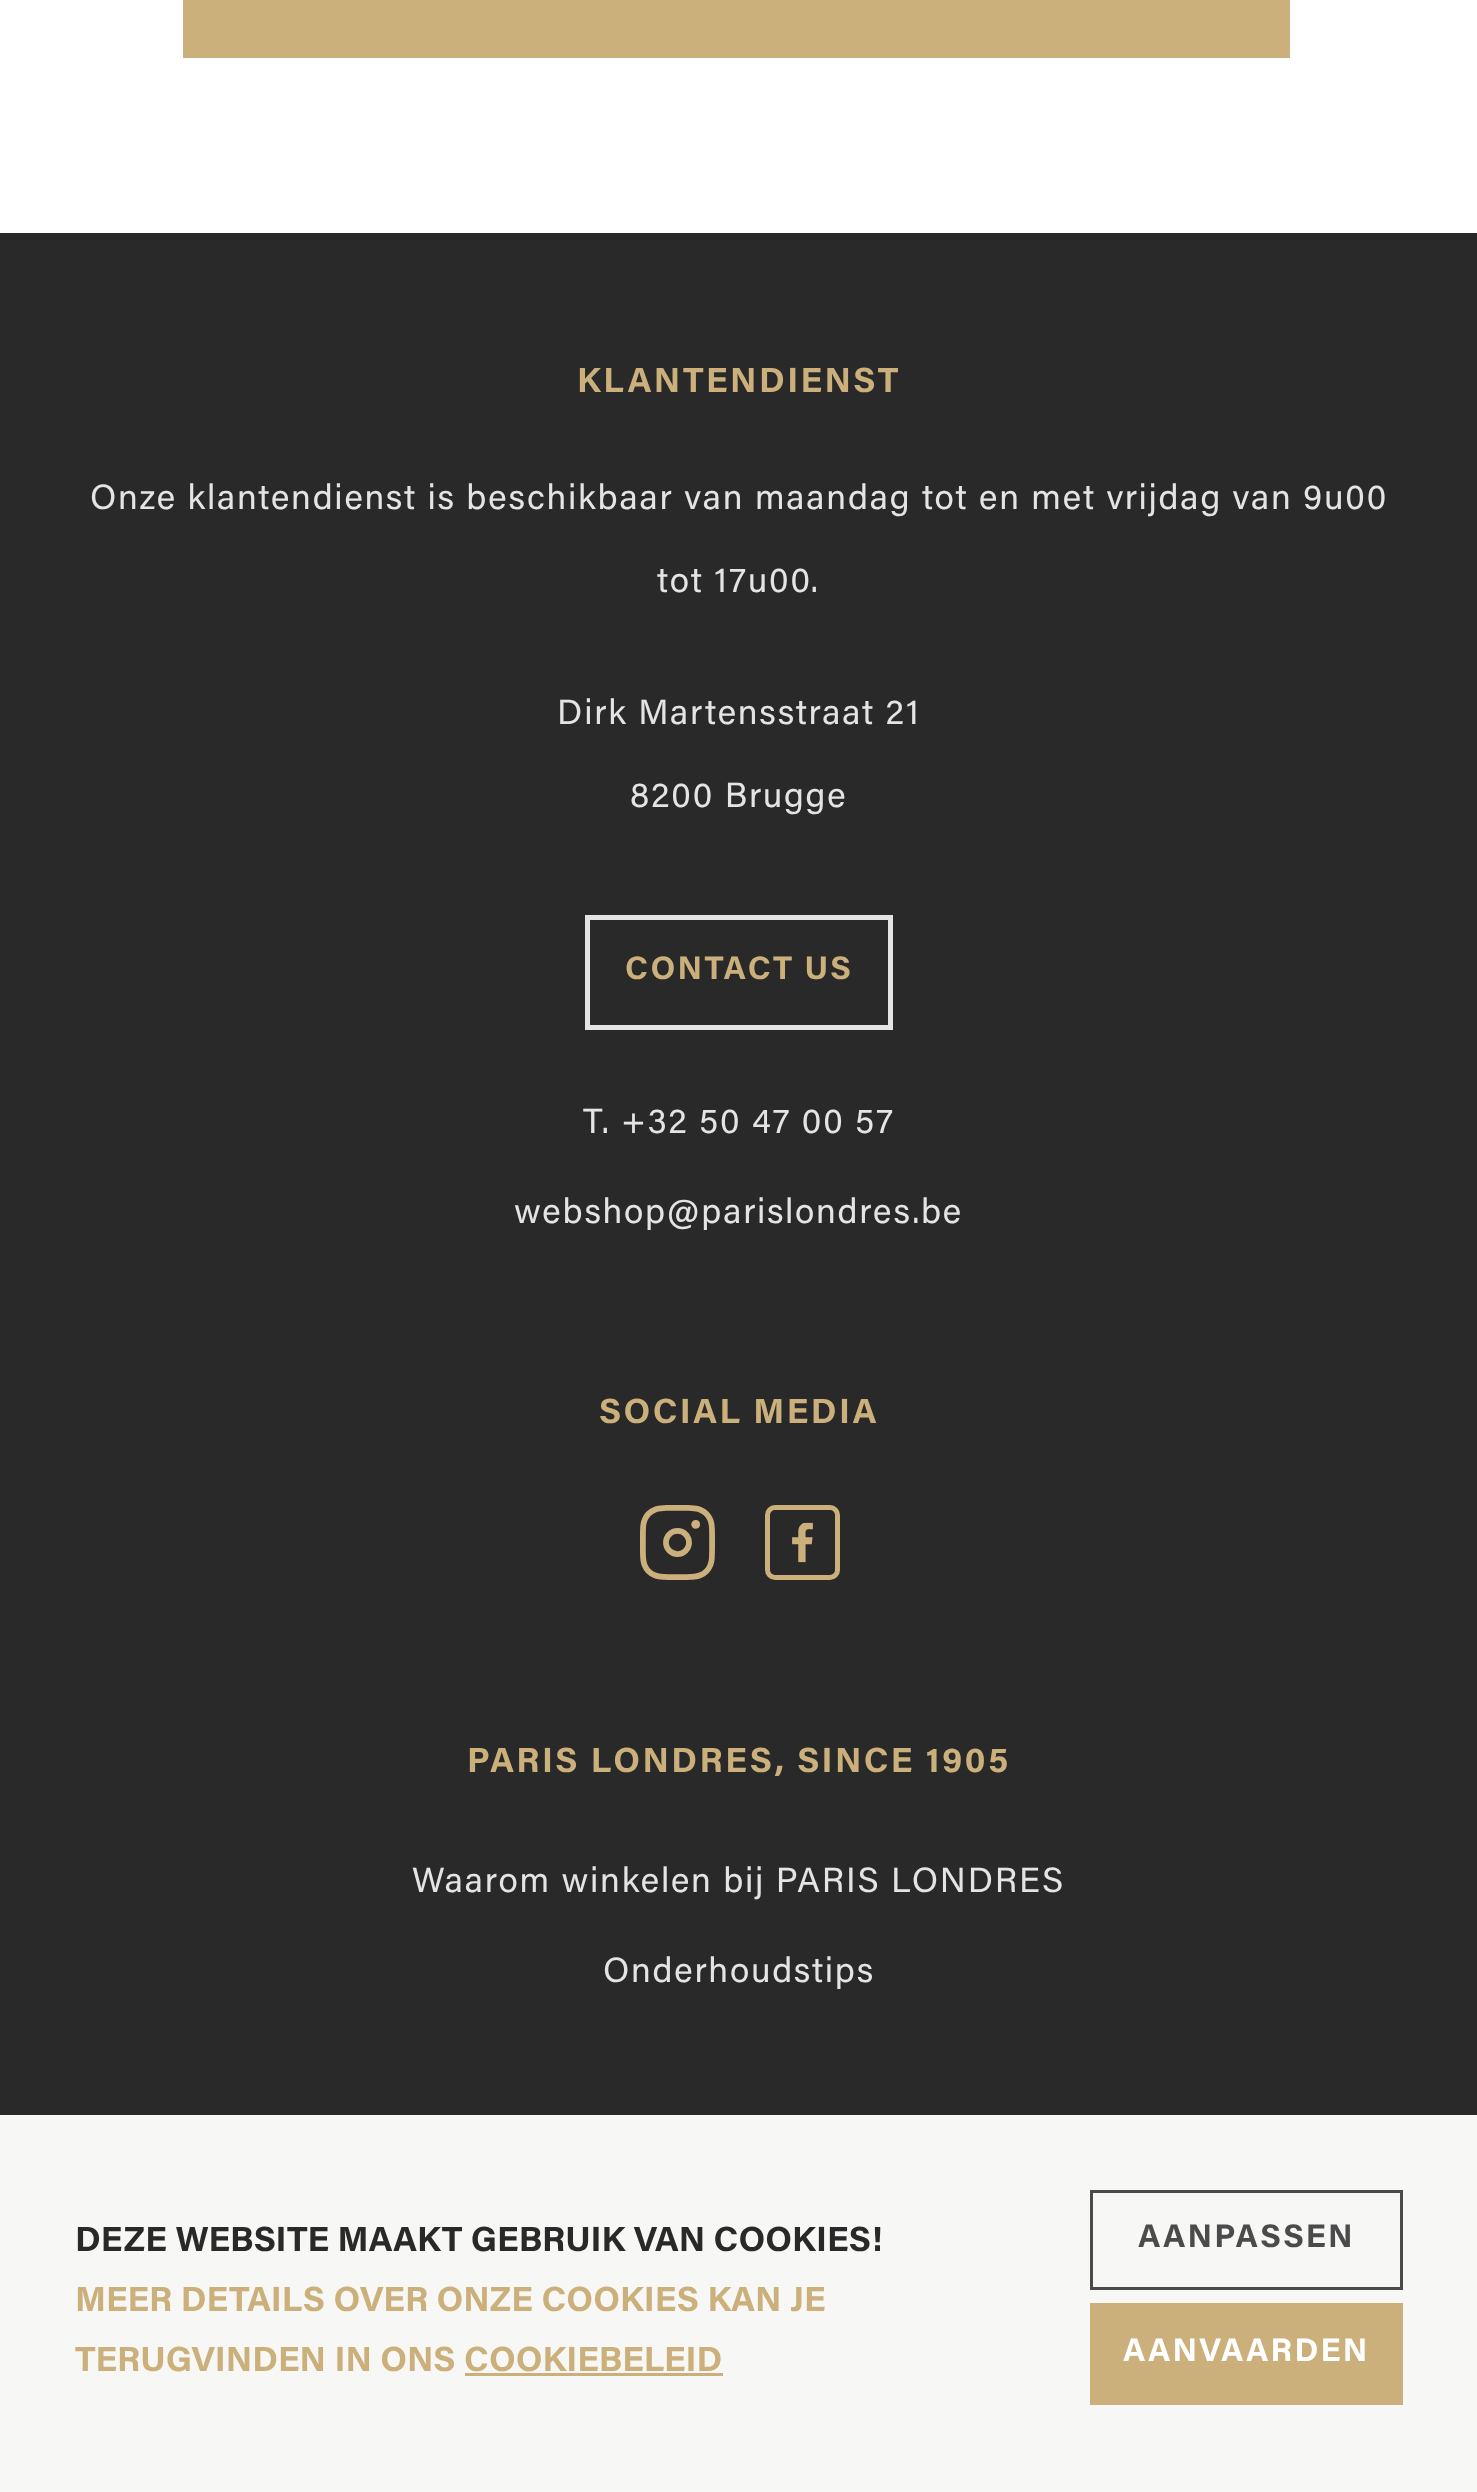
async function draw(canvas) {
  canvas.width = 1477
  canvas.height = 2492
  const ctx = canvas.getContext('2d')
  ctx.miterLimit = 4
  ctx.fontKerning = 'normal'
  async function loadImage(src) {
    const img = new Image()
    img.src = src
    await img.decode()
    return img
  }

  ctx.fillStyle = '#fff'
  ctx.fillRect(0, 0, 1477, 2492)
  ctx.fillStyle = '#cbb07b'
  ctx.fillRect(183, 0, 1107, 58)
  ctx.fillStyle = '#292929'
  ctx.fillRect(0, 233, 1477, 1882)
  ctx.letterSpacing = '2.45px'
  ctx.font = 'bold 35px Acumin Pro'
  ctx.fillStyle = '#cbb07b'
  ctx.fillText('KLANTENDIENST', 577, 392)
  ctx.letterSpacing = '1.75px'
  ctx.font = '35px Acumin Pro'
  ctx.fillStyle = '#e4e4e4'
  ctx.fillText('Onze klantendienst is beschikbaar van maandag tot en met vrijdag van 9u00', 90, 509)
  ctx.fillText('tot 17u00.', 657, 592)
  ctx.fillText('Dirk Martensstraat 21', 557, 724)
  ctx.fillText('8200 Brugge', 630, 807)
  ctx.strokeStyle = '#e4e4e4'
  ctx.lineWidth = 5
  ctx.strokeRect(587.5, 917.5, 303, 110)
  ctx.letterSpacing = '2.25px'
  ctx.font = 'bold 32.5px Acumin Pro'
  ctx.fillStyle = '#cbb07b'
  ctx.fillText('CONTACT US', 625, 979)
  ctx.letterSpacing = '1.75px'
  ctx.font = '35px Acumin Pro'
  ctx.fillStyle = '#e4e4e4'
  ctx.fillText('T. +32 50 47 00 57', 583, 1133)
  ctx.fillText('webshop@parislondres.be', 514, 1223)
  ctx.letterSpacing = '2.45px'
  ctx.font = 'bold 35px Acumin Pro'
  ctx.fillStyle = '#cbb07b'
  ctx.fillText('SOCIAL MEDIA', 599, 1423)
  ctx.drawImage(await loadImage('image0.png'), 640, 1505, 75, 75)
  ctx.beginPath()
  ctx.roundRect(767.5, 1507.5, 70, 70, 7.5)
  ctx.strokeStyle = '#cbb07b'
  ctx.stroke()
  ctx.drawImage(await loadImage('image1.png'), 792, 1522, 21, 41)
  ctx.fillText('PARIS LONDRES, SINCE 1905', 467, 1772)
  ctx.letterSpacing = '1.75px'
  ctx.font = '35px Acumin Pro'
  ctx.fillStyle = '#e4e4e4'
  ctx.fillText('Waarom winkelen bij PARIS LONDRES', 412, 1892)
  ctx.fillText('Onderhoudstips', 603, 1982)
  ctx.fillStyle = '#f7f7f5'
  ctx.fillRect(0, 2115, 1477, 377)
  ctx.letterSpacing = '0px'
  ctx.font = 'bold 35px Acumin Pro'
  ctx.fillStyle = '#292929'
  ctx.fillText('DEZE WEBSITE MAAKT GEBRUIK VAN COOKIES!', 75, 2251)
  ctx.fillStyle = '#cbb07b'
  ctx.fillText('MEER DETAILS OVER ONZE COOKIES KAN JE', 75, 2311)
  ctx.fillText('TERUGVINDEN IN ONS COOKIEBELEID', 75, 2371)
  ctx.fillRect(465, 2373, 258, 3)
  ctx.strokeStyle = '#4b4b4b'
  ctx.lineWidth = 3
  ctx.strokeRect(1091.5, 2191.5, 310, 97)
  ctx.letterSpacing = '2.25px'
  ctx.font = 'bold 32.5px Acumin Pro'
  ctx.fillStyle = '#4b4b4b'
  ctx.fillText('AANPASSEN', 1138, 2247)
  ctx.fillStyle = '#cbb07b'
  ctx.fillRect(1090, 2303, 313, 102)
  ctx.fillStyle = '#fff'
  ctx.fillText('AANVAARDEN', 1123, 2361)
}

draw(document.querySelector('canvas'))
